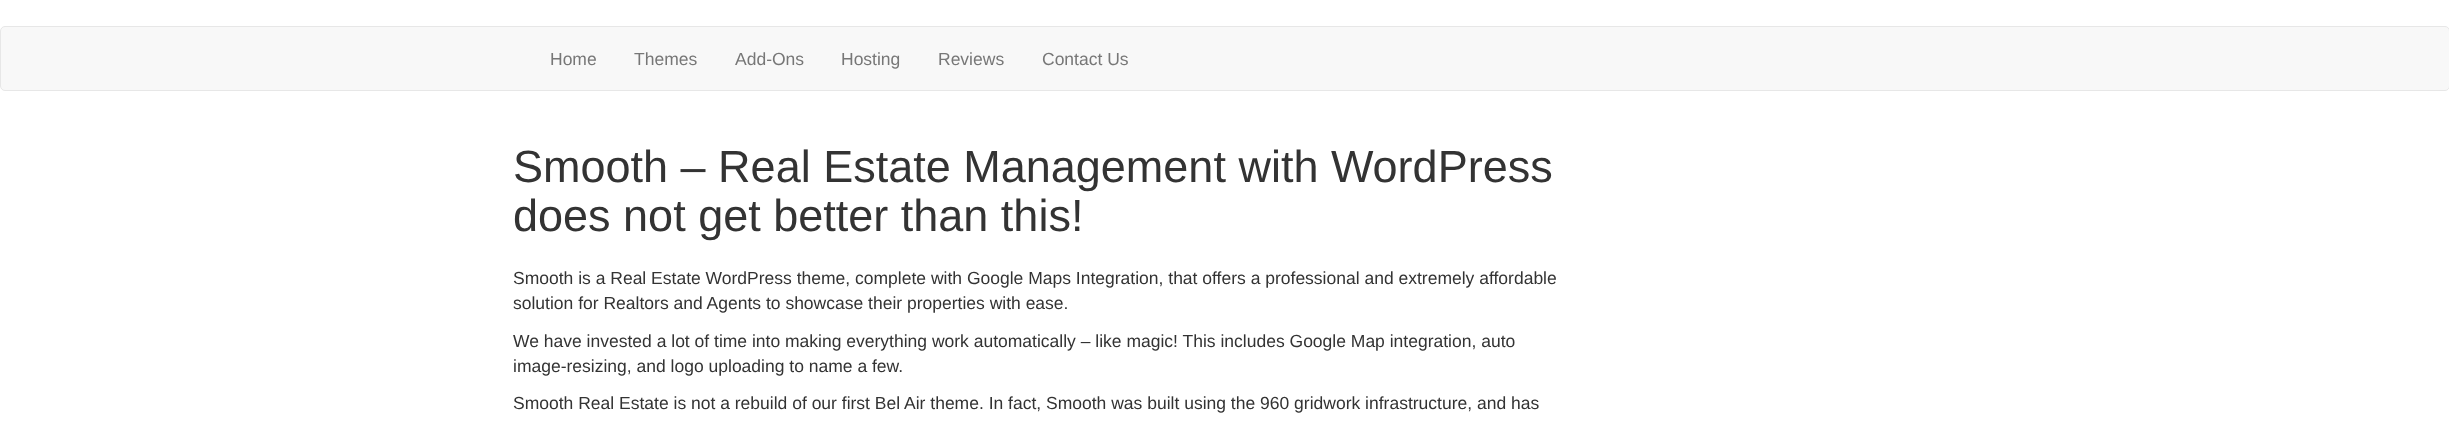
async function draw(canvas) {
  canvas.width = 2449
  canvas.height = 428
  const ctx = canvas.getContext('2d')
  ctx.miterLimit = 4
  ctx.fontKerning = 'normal'

  ctx.fillStyle = '#fff'
  ctx.fillRect(0, 0, 2449, 428)
  ctx.fillStyle = '#f8f8f8'
  ctx.beginPath()
  ctx.roundRect(0.5, 26.5, 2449, 64, 4.5)
  ctx.fill()
  ctx.strokeStyle = '#e7e7e7'
  ctx.stroke()
  ctx.font = '17.5px Liberation Sans'
  ctx.fillStyle = '#777'
  ctx.fillText('Home', 550, 65)
  ctx.fillText('Themes', 634, 65)
  ctx.fillText('Add-Ons', 735, 65)
  ctx.fillText('Hosting', 841, 65)
  ctx.fillText('Reviews', 938, 65)
  ctx.fillText('Contact Us', 1042, 65)
  ctx.font = '45px Liberation Sans'
  ctx.fillStyle = '#333'
  ctx.fillText('Smooth – Real Estate Management with WordPress', 513, 182)
  ctx.fillText('does not get better than this!', 513, 231)
  ctx.font = '17.5px Liberation Sans'
  ctx.fillText('Smooth is a Real Estate WordPress theme, complete with Google Maps Integration, that offers a professional and extremely affordable', 513, 284)
  ctx.fillText('solution for Realtors and Agents to showcase their properties with ease.', 513, 309)
  ctx.fillText('We have invested a lot of time into making everything work automatically – like magic! This includes Google Map integration, auto', 513, 347)
  ctx.fillText('image-resizing, and logo uploading to name a few.', 513, 372)
  ctx.fillText('Smooth Real Estate is not a rebuild of our first Bel Air theme. In fact, Smooth was built using the 960 gridwork infrastructure, and has', 513, 409)
}

draw(document.querySelector('canvas'))
